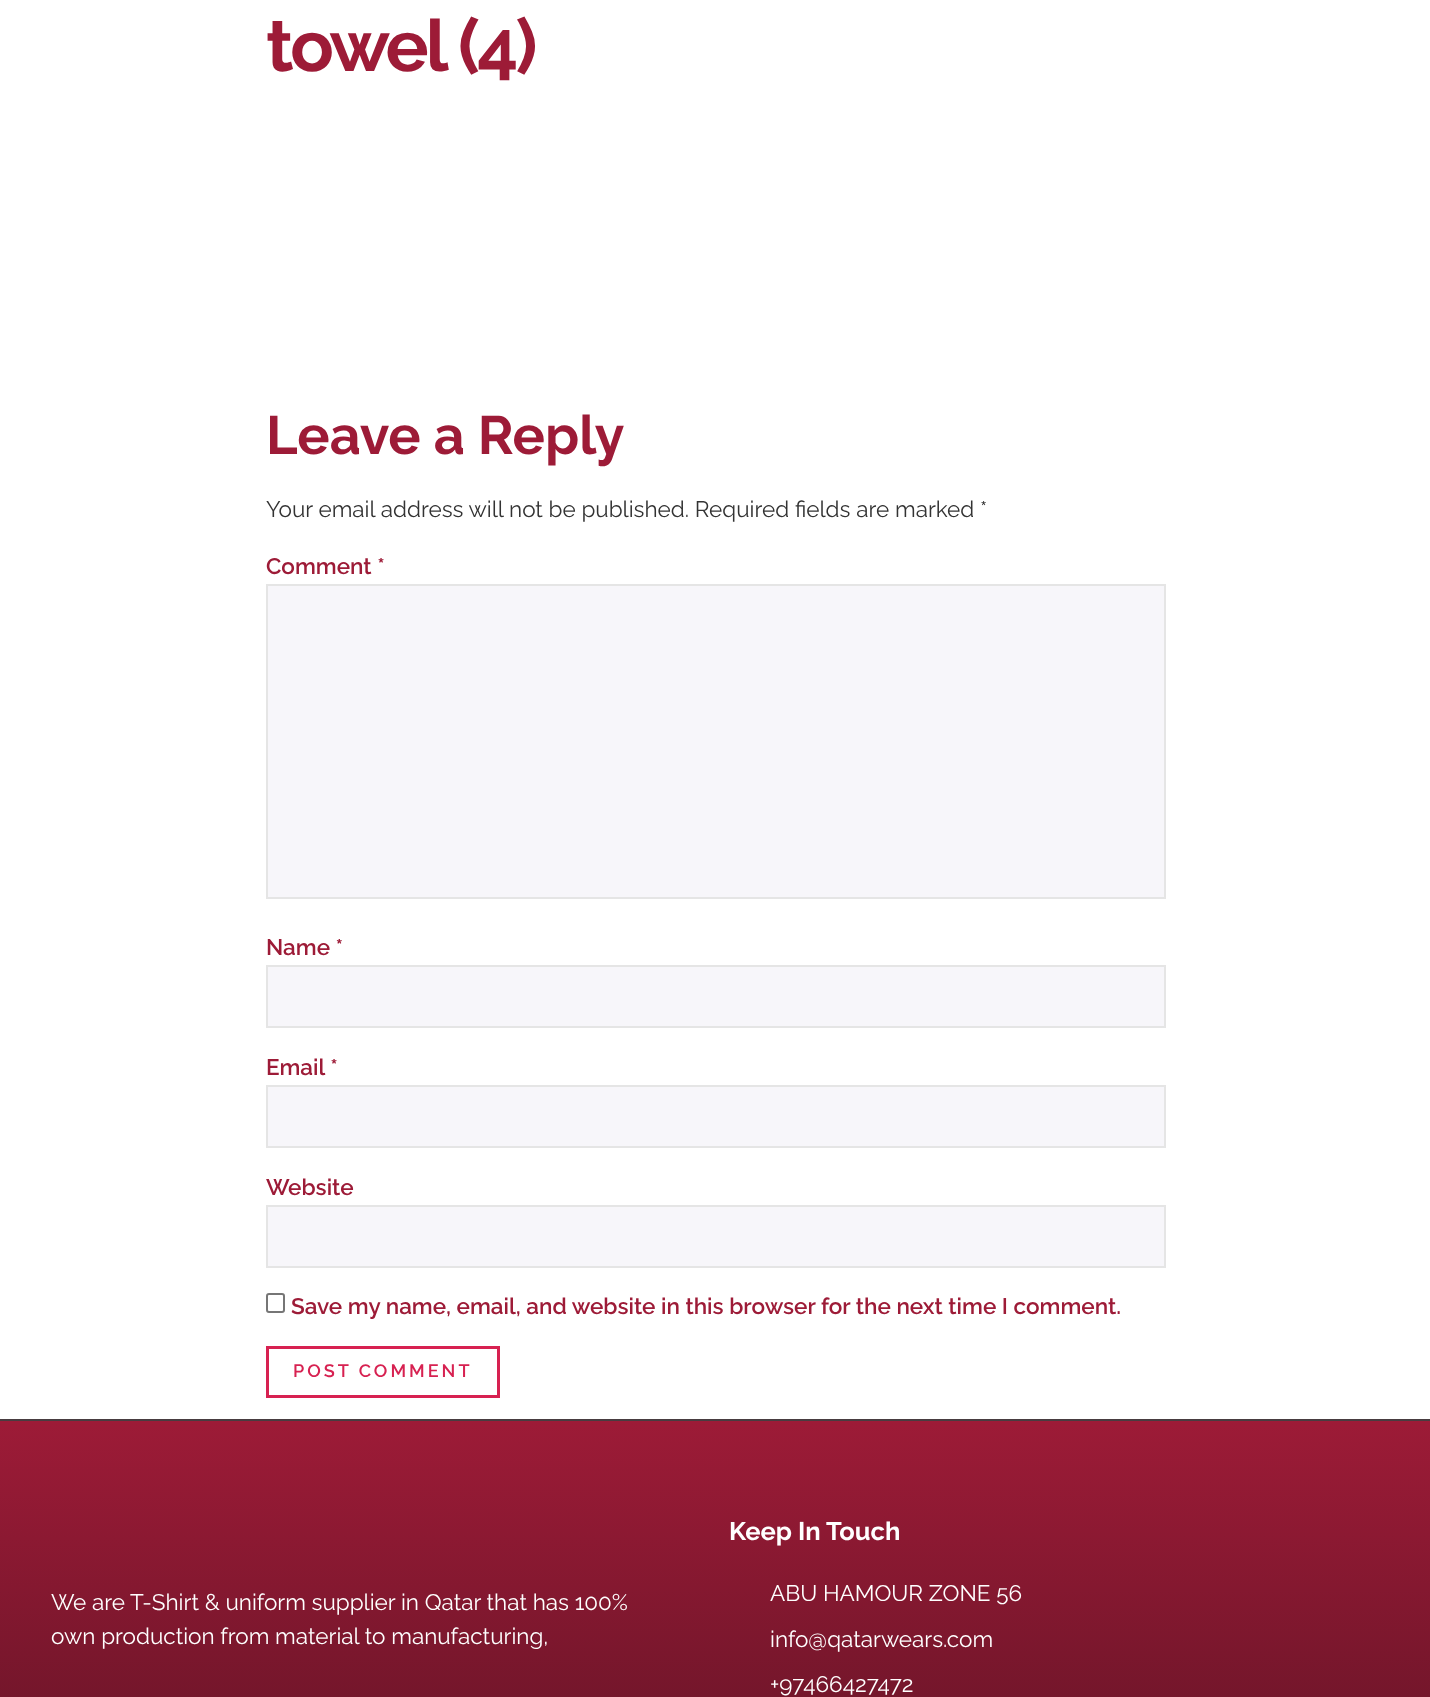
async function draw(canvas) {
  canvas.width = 1430
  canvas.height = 1697
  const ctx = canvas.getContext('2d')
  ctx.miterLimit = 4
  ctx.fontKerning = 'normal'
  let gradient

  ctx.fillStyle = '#fff'
  ctx.fillRect(0, 0, 1430, 1697)
  ctx.letterSpacing = '-3px'
  ctx.font = 'bold 72px Raleway'
  ctx.fillStyle = '#9d1b37'
  ctx.fillText('towel (4)', 266, 71)
  ctx.letterSpacing = '0px'
  ctx.font = 'bold 54px Raleway'
  ctx.fillText('Leave a Reply', 266, 454)
  ctx.font = '22.5px Raleway'
  ctx.fillStyle = '#333'
  ctx.fillText('Your email address will not be published. Required fields are marked *', 266, 517)
  ctx.font = '600 22.5px Raleway'
  ctx.fillStyle = '#9d1b37'
  ctx.fillText('Comment *', 266, 574)
  ctx.fillStyle = '#f7f6fa'
  ctx.beginPath()
  ctx.rect(267, 585, 898, 313)
  ctx.fill()
  ctx.strokeStyle = '#e5e5e5'
  ctx.lineWidth = 2
  ctx.stroke()
  ctx.fillStyle = '#9d1b37'
  ctx.fillText('Name *', 266, 955)
  ctx.fillStyle = '#f7f6fa'
  ctx.beginPath()
  ctx.rect(267, 966, 898, 61)
  ctx.fill()
  ctx.stroke()
  ctx.fillStyle = '#9d1b37'
  ctx.fillText('Email *', 266, 1075)
  ctx.fillStyle = '#f7f6fa'
  ctx.beginPath()
  ctx.rect(267, 1086, 898, 61)
  ctx.fill()
  ctx.stroke()
  ctx.fillStyle = '#9d1b37'
  ctx.fillText('Website', 266, 1195)
  ctx.fillStyle = '#f7f6fa'
  ctx.beginPath()
  ctx.rect(267, 1206, 898, 61)
  ctx.fill()
  ctx.stroke()
  ctx.beginPath()
  ctx.roundRect(267, 1294, 17, 18, 2)
  ctx.strokeStyle = '#767676'
  ctx.stroke()
  ctx.fillStyle = '#9d1b37'
  ctx.fillText('Save my name, email, and website in this browser for the next time I comment.', 291, 1314)
  ctx.strokeStyle = '#d72151'
  ctx.lineWidth = 3
  ctx.strokeRect(267.5, 1347.5, 231, 49)
  ctx.letterSpacing = '3px'
  ctx.font = '600 18px Raleway'
  ctx.fillStyle = '#d72151'
  ctx.fillText('POST COMMENT', 293, 1377)
  gradient = ctx.createLinearGradient(715, 1421, 716, 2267)
  gradient.addColorStop(0, '#9d1b37')
  gradient.addColorStop(1, '#210c13')
  ctx.fillStyle = gradient
  ctx.fillRect(0, 1421, 1430, 276)
  ctx.fillStyle = '#483c40'
  ctx.fillRect(0, 1419, 1430, 2)
  ctx.letterSpacing = '0px'
  ctx.font = '22.5px Raleway'
  ctx.fillStyle = '#fff'
  ctx.fillText('We are T-Shirt & uniform supplier in Qatar that has 100%', 51, 1610)
  ctx.fillText('own production from material to manufacturing,', 51, 1644)
  ctx.font = 'bold 25.5px Raleway'
  ctx.fillText('Keep In Touch', 729, 1540)
  ctx.font = '22.5px Raleway'
  ctx.fillText('ABU HAMOUR ZONE 56', 770, 1601)
  ctx.fillText('info@qatarwears.com', 770, 1647)
  ctx.fillText('+97466427472', 770, 1692)
}

draw(document.querySelector('canvas'))
